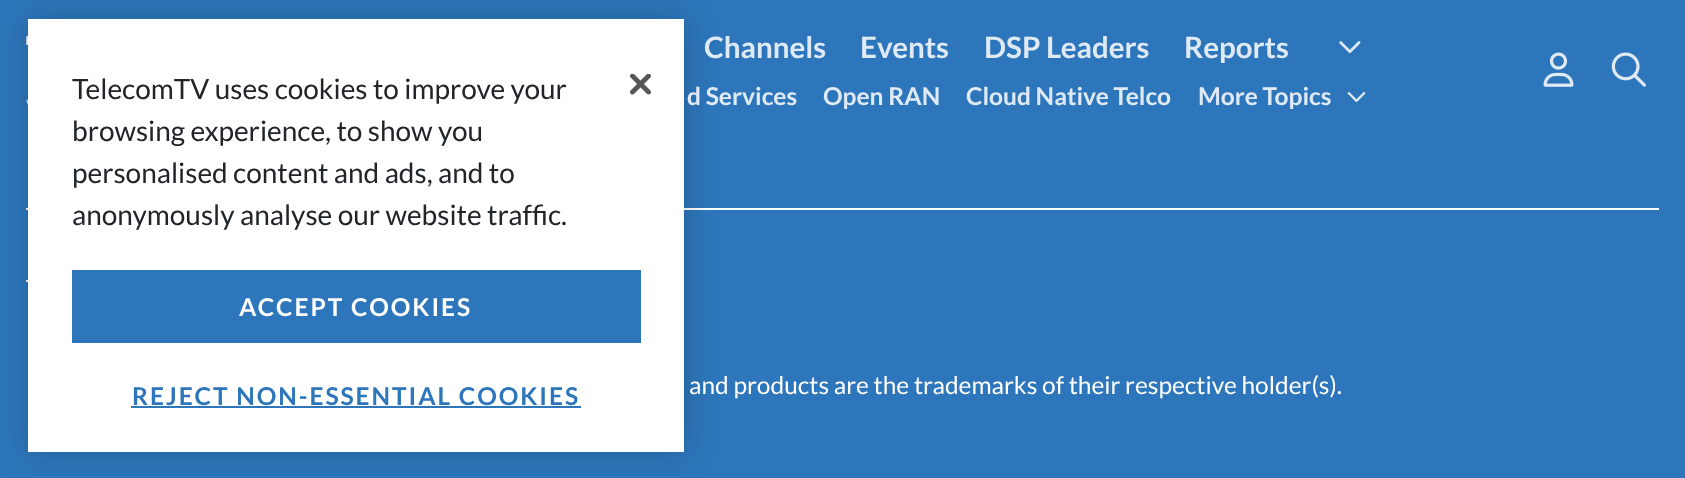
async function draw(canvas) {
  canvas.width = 1685
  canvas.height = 478
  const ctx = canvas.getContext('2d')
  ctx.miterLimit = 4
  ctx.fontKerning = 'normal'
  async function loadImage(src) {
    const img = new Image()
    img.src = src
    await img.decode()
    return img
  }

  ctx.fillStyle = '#2d76bb'
  ctx.fillRect(0, 0, 1685, 478)
  ctx.drawImage(await loadImage('image1.png'), 26, 36, 2, 9)
  ctx.drawImage(await loadImage('image2.png'), 26, 99, 2, 7)
  ctx.fillStyle = '#fff'
  ctx.fillRect(26, 208, 1633, 2)
  ctx.fillRect(26, 280, 2, 2)
  ctx.fillStyle = '#00000033'
  ctx.filter = 'blur(16px)'
  ctx.beginPath()
  ctx.rect(28, 19, 656, 433)
  ctx.fill()
  ctx.filter = 'none'
  ctx.fillStyle = '#fff'
  ctx.fillRect(28, 19, 656, 433)
  ctx.font = '28px Lato'
  ctx.fillStyle = '#212529'
  ctx.fillText('TelecomTV uses cookies to improve your', 72, 99)
  ctx.fillText('browsing experience, to show you', 72, 141)
  ctx.fillText('personalised content and ads, and to', 72, 183)
  ctx.fillText('anonymously analyse our website traffic.', 72, 225)
  ctx.drawImage(await loadImage('image0.png'), 630, 74, 21, 21)
  ctx.fillStyle = '#2d76bb'
  ctx.fillRect(72, 270, 569, 73)
  ctx.letterSpacing = '1.95px'
  ctx.font = 'bold 24.5px Lato'
  ctx.fillStyle = '#fff'
  ctx.fillText('ACCEPT COOKIES', 239, 316)
  ctx.fillStyle = '#2d76bb'
  ctx.fillText('REJECT NON-ESSENTIAL COOKIES', 132, 405)
  ctx.fillRect(131, 406, 450, 2)
  ctx.letterSpacing = '0px'
  ctx.font = 'bold 29.5px Lato'
  ctx.fillStyle = '#e0eaf5'
  ctx.fillText('Channels', 704, 58)
  ctx.fillText('Events', 860, 58)
  ctx.fillText('DSP Leaders', 984, 58)
  ctx.fillText('Reports', 1184, 58)
  ctx.drawImage(await loadImage('image3.png'), 1339, 41, 22, 13)
  ctx.font = 'bold 24.5px Lato'
  ctx.fillText('d Services', 687, 105)
  ctx.fillText('Open RAN', 823, 105)
  ctx.fillText('Cloud Native Telco', 966, 105)
  ctx.fillText('More Topics', 1198, 105)
  ctx.drawImage(await loadImage('image4.png'), 1347, 92, 19, 10)
  ctx.drawImage(await loadImage('image5.png'), 1543, 52, 31, 35)
  ctx.drawImage(await loadImage('image6.png'), 1611, 52, 35, 35)
  ctx.font = '24.5px Lato'
  ctx.fillStyle = '#fff'
  ctx.fillText('and products are the trademarks of their respective holder(s).', 689, 394)
}

draw(document.querySelector('canvas'))
